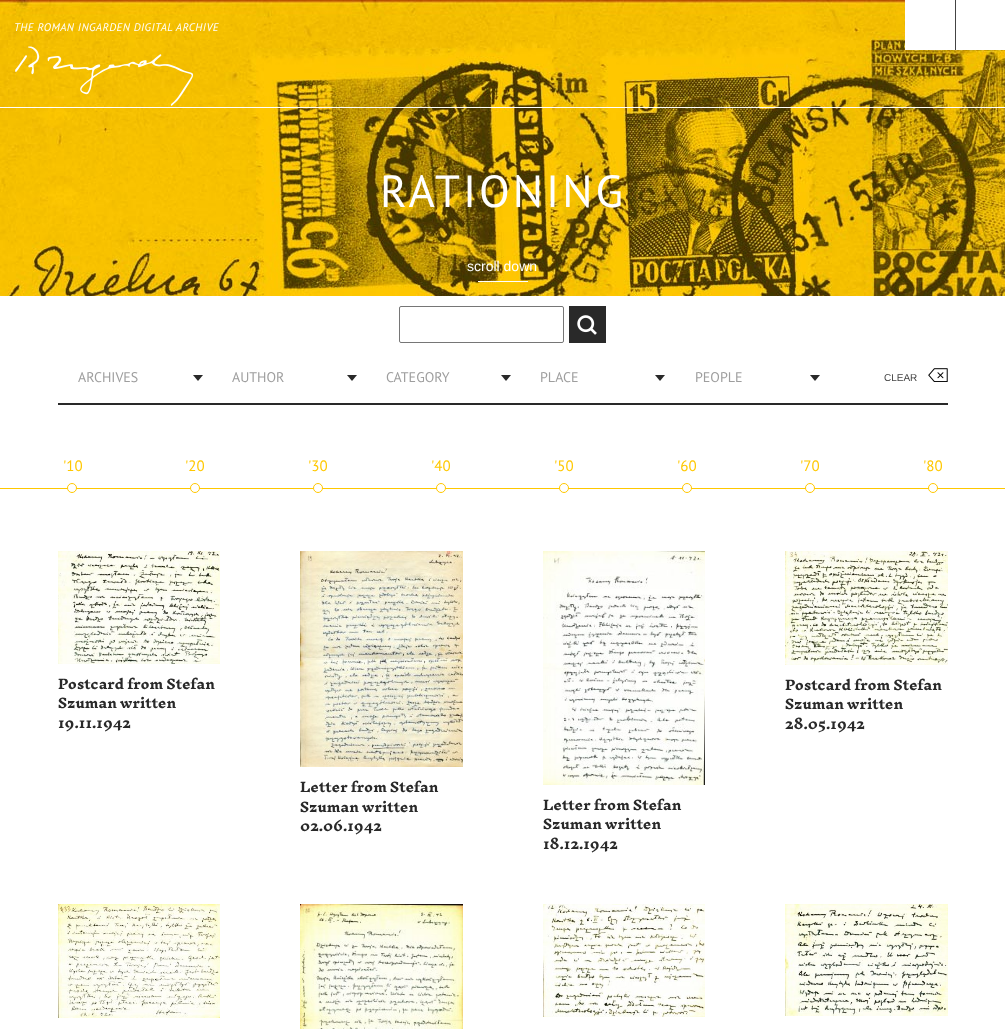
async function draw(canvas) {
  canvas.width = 1005
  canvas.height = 1029
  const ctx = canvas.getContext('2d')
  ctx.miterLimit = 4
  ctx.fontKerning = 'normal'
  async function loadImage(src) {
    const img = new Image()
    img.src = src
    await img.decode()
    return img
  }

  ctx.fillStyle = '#fff'
  ctx.fillRect(0, 0, 1005, 1029)
  ctx.drawImage(await loadImage('image0.png'), 0, 0, 1005, 296)
  ctx.fillRect(0, 107, 1005, 1)
  ctx.letterSpacing = '0.5px'
  ctx.font = 'italic 11px PT Sans'
  ctx.fillText('THE ROMAN INGARDEN DIGITAL ARCHIVE', 14, 31)
  ctx.drawImage(await loadImage('image1.png'), 15, 46, 179, 60)
  ctx.fillRect(905, 0, 50, 50)
  ctx.fillRect(956, 0, 49, 50)
  ctx.fillStyle = '#444'
  ctx.fillRect(955, 0, 1, 50)
  ctx.letterSpacing = '3px'
  ctx.font = '45px PT Sans'
  ctx.fillStyle = '#fff'
  ctx.fillText('RATIONING', 380, 207)
  ctx.letterSpacing = '0px'
  ctx.font = '14px Liberation Sans'
  ctx.fillText('scroll down', 467, 271)
  ctx.fillRect(478, 281, 50, 1)
  ctx.beginPath()
  ctx.roundRect(399.5, 306.5, 164, 36, 1.5)
  ctx.strokeStyle = '#767676'
  ctx.stroke()
  ctx.fillStyle = '#292929'
  ctx.fillRect(569, 306, 37, 37)
  ctx.drawImage(await loadImage('image2.png'), 577, 315, 20, 20)
  ctx.fillRect(58, 403, 890, 2)
  ctx.font = '14px PT Sans'
  ctx.fillStyle = '#9e9e9e'
  ctx.fillText('ARCHIVES', 78, 382)
  ctx.fillStyle = '#292929'
  ctx.beginPath()
  ctx.moveTo(193, 375)
  ctx.lineTo(203, 375)
  ctx.lineTo(198, 381)
  ctx.closePath()
  ctx.fill()
  ctx.fillStyle = '#9e9e9e'
  ctx.fillText('AUTHOR', 232, 382)
  ctx.fillStyle = '#292929'
  ctx.beginPath()
  ctx.moveTo(347, 375)
  ctx.lineTo(357, 375)
  ctx.lineTo(352, 381)
  ctx.closePath()
  ctx.fill()
  ctx.fillStyle = '#9e9e9e'
  ctx.fillText('CATEGORY', 386, 382)
  ctx.fillStyle = '#292929'
  ctx.beginPath()
  ctx.moveTo(501, 375)
  ctx.lineTo(511, 375)
  ctx.lineTo(506, 381)
  ctx.closePath()
  ctx.fill()
  ctx.fillStyle = '#9e9e9e'
  ctx.fillText('PLACE', 540, 382)
  ctx.fillStyle = '#292929'
  ctx.beginPath()
  ctx.moveTo(655, 375)
  ctx.lineTo(665, 375)
  ctx.lineTo(660, 381)
  ctx.closePath()
  ctx.fill()
  ctx.fillStyle = '#9e9e9e'
  ctx.fillText('PEOPLE', 695, 382)
  ctx.fillStyle = '#292929'
  ctx.beginPath()
  ctx.moveTo(810, 375)
  ctx.lineTo(820, 375)
  ctx.lineTo(815, 381)
  ctx.closePath()
  ctx.fill()
  ctx.font = '10px Liberation Sans'
  ctx.fillStyle = '#444'
  ctx.fillText('CLEAR', 884, 381)
  ctx.drawImage(await loadImage('image3.png'), 928, 368, 20, 14)
  ctx.fillStyle = '#ffc800'
  ctx.fillRect(0, 488, 1005, 1)
  ctx.font = '15px PT Sans'
  ctx.fillText('\'10', 63, 471)
  ctx.fillStyle = '#fff'
  ctx.beginPath()
  ctx.arc(72, 488, 4.5, 0, 2 * Math.PI)
  ctx.fill()
  ctx.strokeStyle = '#ffc800'
  ctx.stroke()
  ctx.fillStyle = '#ffc800'
  ctx.fillText('\'20', 185, 471)
  ctx.fillStyle = '#fff'
  ctx.beginPath()
  ctx.arc(195, 488, 4.5, 0, 2 * Math.PI)
  ctx.fill()
  ctx.stroke()
  ctx.fillStyle = '#ffc800'
  ctx.fillText('\'30', 308, 471)
  ctx.fillStyle = '#fff'
  ctx.beginPath()
  ctx.arc(318, 488, 4.5, 0, 2 * Math.PI)
  ctx.fill()
  ctx.stroke()
  ctx.fillStyle = '#ffc800'
  ctx.fillText('\'40', 431, 471)
  ctx.fillStyle = '#fff'
  ctx.beginPath()
  ctx.arc(441, 488, 4.5, 0, 2 * Math.PI)
  ctx.fill()
  ctx.stroke()
  ctx.fillStyle = '#ffc800'
  ctx.fillText('\'50', 554, 471)
  ctx.fillStyle = '#fff'
  ctx.beginPath()
  ctx.arc(564, 488, 4.5, 0, 2 * Math.PI)
  ctx.fill()
  ctx.stroke()
  ctx.fillStyle = '#ffc800'
  ctx.fillText('\'60', 677, 471)
  ctx.fillStyle = '#fff'
  ctx.beginPath()
  ctx.arc(687, 488, 4.5, 0, 2 * Math.PI)
  ctx.fill()
  ctx.stroke()
  ctx.fillStyle = '#ffc800'
  ctx.fillText('\'70', 800, 471)
  ctx.fillStyle = '#fff'
  ctx.beginPath()
  ctx.arc(810, 488, 4.5, 0, 2 * Math.PI)
  ctx.fill()
  ctx.stroke()
  ctx.fillStyle = '#ffc800'
  ctx.fillText('\'80', 923, 471)
  ctx.fillStyle = '#fff'
  ctx.beginPath()
  ctx.arc(933, 488, 4.5, 0, 2 * Math.PI)
  ctx.fill()
  ctx.stroke()
  ctx.drawImage(await loadImage('image4.png'), 58, 551, 162, 113)
  ctx.font = 'bold 13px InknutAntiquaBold'
  ctx.fillStyle = '#292929'
  ctx.fillText('Postcard from Stefan', 58, 689)
  ctx.fillText('Szuman written', 58, 708)
  ctx.fillText('19.11.1942', 58, 728)
  ctx.drawImage(await loadImage('image5.png'), 785, 551, 163, 114)
  ctx.fillText('Postcard from Stefan', 785, 690)
  ctx.fillText('Szuman written', 785, 709)
  ctx.fillText('28.05.1942', 785, 729)
  ctx.drawImage(await loadImage('image6.png'), 300, 551, 163, 216)
  ctx.fillText('Letter from Stefan', 300, 792)
  ctx.fillText('Szuman written', 300, 812)
  ctx.fillText('02.06.1942', 300, 831)
  ctx.drawImage(await loadImage('image7.png'), 543, 551, 162, 234)
  ctx.fillText('Letter from Stefan', 543, 810)
  ctx.fillText('Szuman written', 543, 829)
  ctx.fillText('18.12.1942', 543, 849)
  ctx.drawImage(await loadImage('image8.png'), 58, 904, 162, 114)
  ctx.drawImage(await loadImage('image9.png'), 300, 904, 163, 125)
  ctx.drawImage(await loadImage('image10.png'), 543, 904, 162, 113)
  ctx.drawImage(await loadImage('image11.png'), 785, 904, 163, 112)
}

draw(document.querySelector('canvas'))
